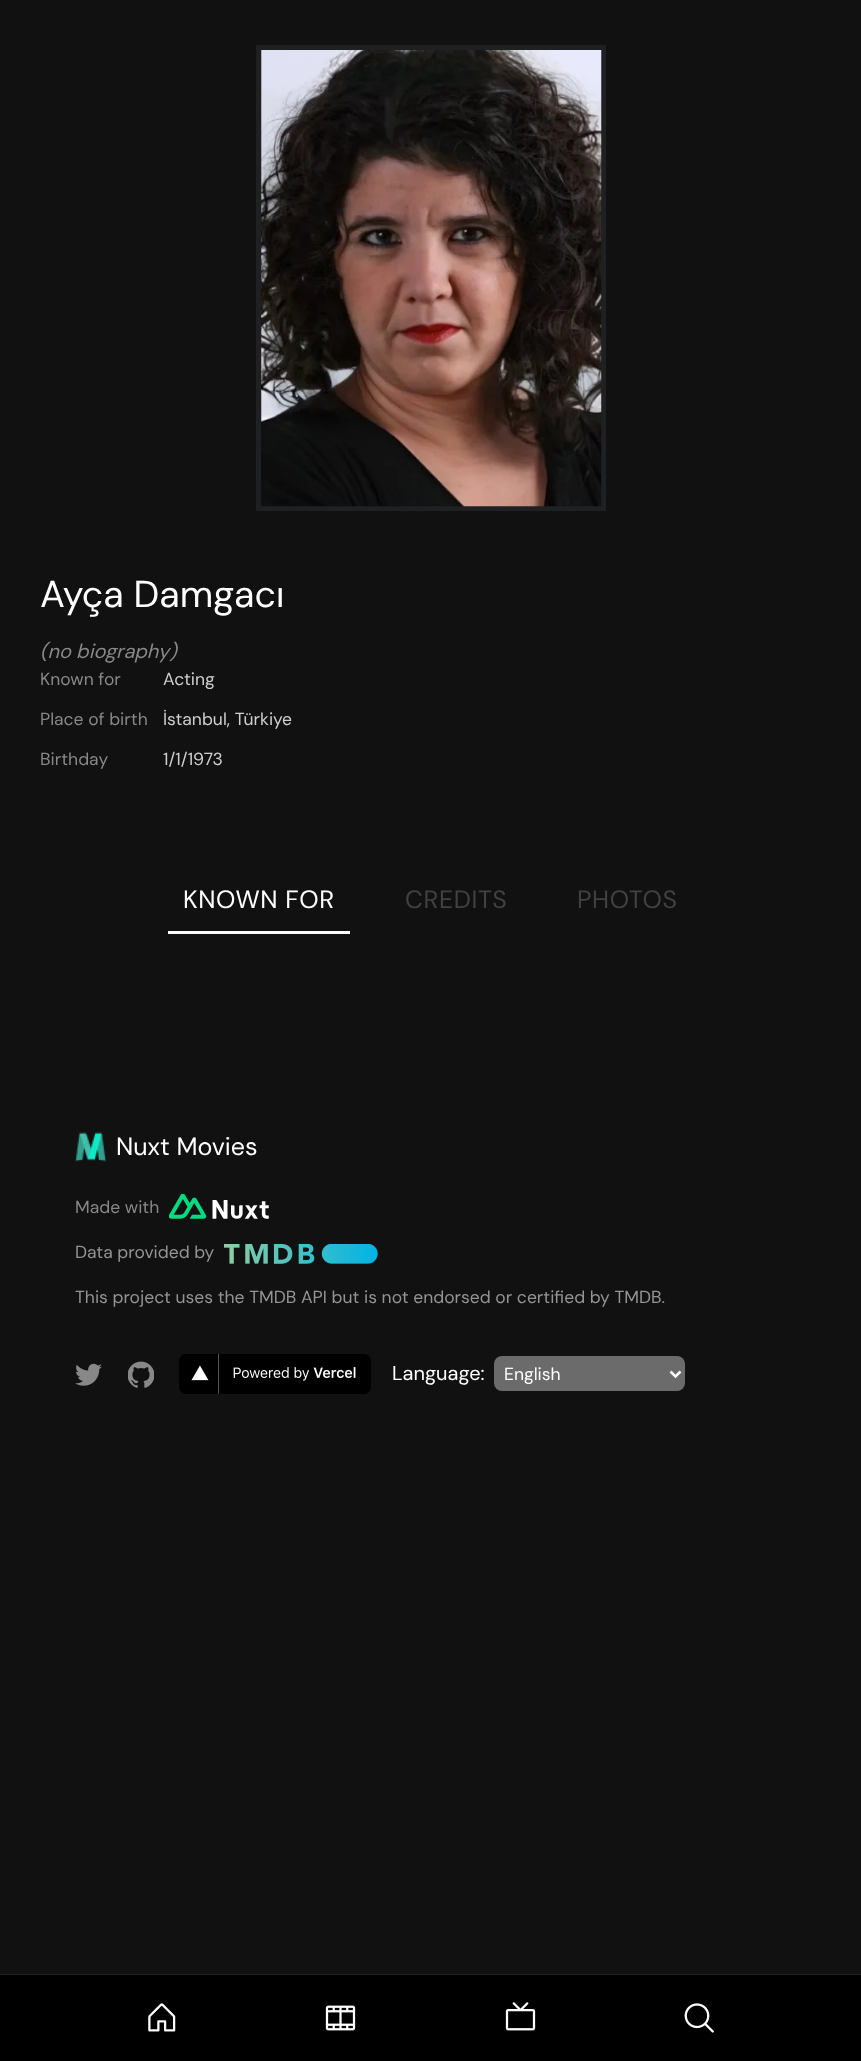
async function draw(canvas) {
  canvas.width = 861
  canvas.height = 2061
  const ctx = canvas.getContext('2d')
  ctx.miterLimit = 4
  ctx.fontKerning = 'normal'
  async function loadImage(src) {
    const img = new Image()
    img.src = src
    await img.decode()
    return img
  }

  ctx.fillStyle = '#111'
  ctx.fillRect(0, 0, 861, 2061)
  ctx.strokeStyle = '#1f2021'
  ctx.lineWidth = 5
  ctx.strokeRect(258.5, 47.5, 345, 461)
  ctx.drawImage(await loadImage('image0.png'), 261, 50, 341, 457)
  ctx.font = '37.5px DM Sans'
  ctx.fillStyle = '#fff'
  ctx.fillText('Ayça Damgacı', 40, 607)
  ctx.font = 'italic 20px DM Sans'
  ctx.fillStyle = '#888'
  ctx.fillText('(no biography)', 40, 658)
  ctx.font = '17.5px DM Sans'
  ctx.fillText('Known for', 40, 685)
  ctx.fillStyle = '#cfcfcf'
  ctx.fillText('Acting', 163, 685)
  ctx.fillStyle = '#888'
  ctx.fillText('Place of birth', 40, 725)
  ctx.fillStyle = '#cfcfcf'
  ctx.fillText('İstanbul, Türkiye', 163, 725)
  ctx.fillStyle = '#888'
  ctx.fillText('Birthday', 40, 765)
  ctx.fillStyle = '#cfcfcf'
  ctx.fillText('1/1/1973', 163, 765)
  ctx.fillStyle = '#fff'
  ctx.fillRect(168, 931, 182, 3)
  ctx.letterSpacing = '0.6px'
  ctx.font = '25px DM Sans'
  ctx.fillText('KNOWN FOR', 183, 908)
  ctx.fillStyle = '#414141'
  ctx.fillText('CREDITS', 405, 908)
  ctx.fillText('PHOTOS', 577, 908)
  ctx.drawImage(await loadImage('image1.png'), 75, 1132, 32, 30)
  ctx.letterSpacing = '0px'
  ctx.fillStyle = '#fff'
  ctx.fillText('Nuxt Movies', 116, 1155)
  ctx.font = '17.5px DM Sans'
  ctx.fillStyle = '#888'
  ctx.fillText('Made with', 75, 1213)
  ctx.drawImage(await loadImage('image2.png'), 169, 1194, 100, 25)
  ctx.fillStyle = '#949494'
  ctx.fillText('Data provided by', 75, 1258)
  ctx.drawImage(await loadImage('image3.png'), 224, 1244, 154, 20)
  ctx.fillText('This project uses the TMDB API but is not endorsed or certified by TMDB.', 75, 1303)
  ctx.drawImage(await loadImage('image4.png'), 75, 1363, 27, 23)
  ctx.drawImage(await loadImage('image5.png'), 128, 1361, 26, 27)
  ctx.drawImage(await loadImage('image6.png'), 179, 1354, 192, 40)
  ctx.font = '20px DM Sans'
  ctx.fillStyle = '#fff'
  ctx.fillText('Language:', 392, 1380)
  ctx.fillStyle = '#6b6b6b'
  ctx.beginPath()
  ctx.roundRect(494, 1356, 191, 35, 8)
  ctx.fill()
  ctx.beginPath()
  ctx.moveTo(670.5, 1371.5)
  ctx.lineTo(675.5, 1376.5)
  ctx.lineTo(680.5, 1371.5)
  ctx.strokeStyle = '#fff'
  ctx.lineWidth = 2.5
  ctx.stroke()
  ctx.font = '17.5px DM Sans'
  ctx.fillStyle = '#fff'
  ctx.fillText('English', 504, 1380)
  ctx.fillStyle = '#000'
  ctx.fillRect(0, 1975, 861, 86)
  ctx.fillStyle = '#1f2123'
  ctx.fillRect(0, 1974, 861, 1)
  ctx.drawImage(await loadImage('image7.png'), 148, 2003, 28, 29)
  ctx.drawImage(await loadImage('image8.png'), 325, 2005, 31, 26)
  ctx.drawImage(await loadImage('image9.png'), 505, 2002, 31, 29)
  ctx.drawImage(await loadImage('image10.png'), 684, 2003, 30, 30)
}

draw(document.querySelector('canvas'))
